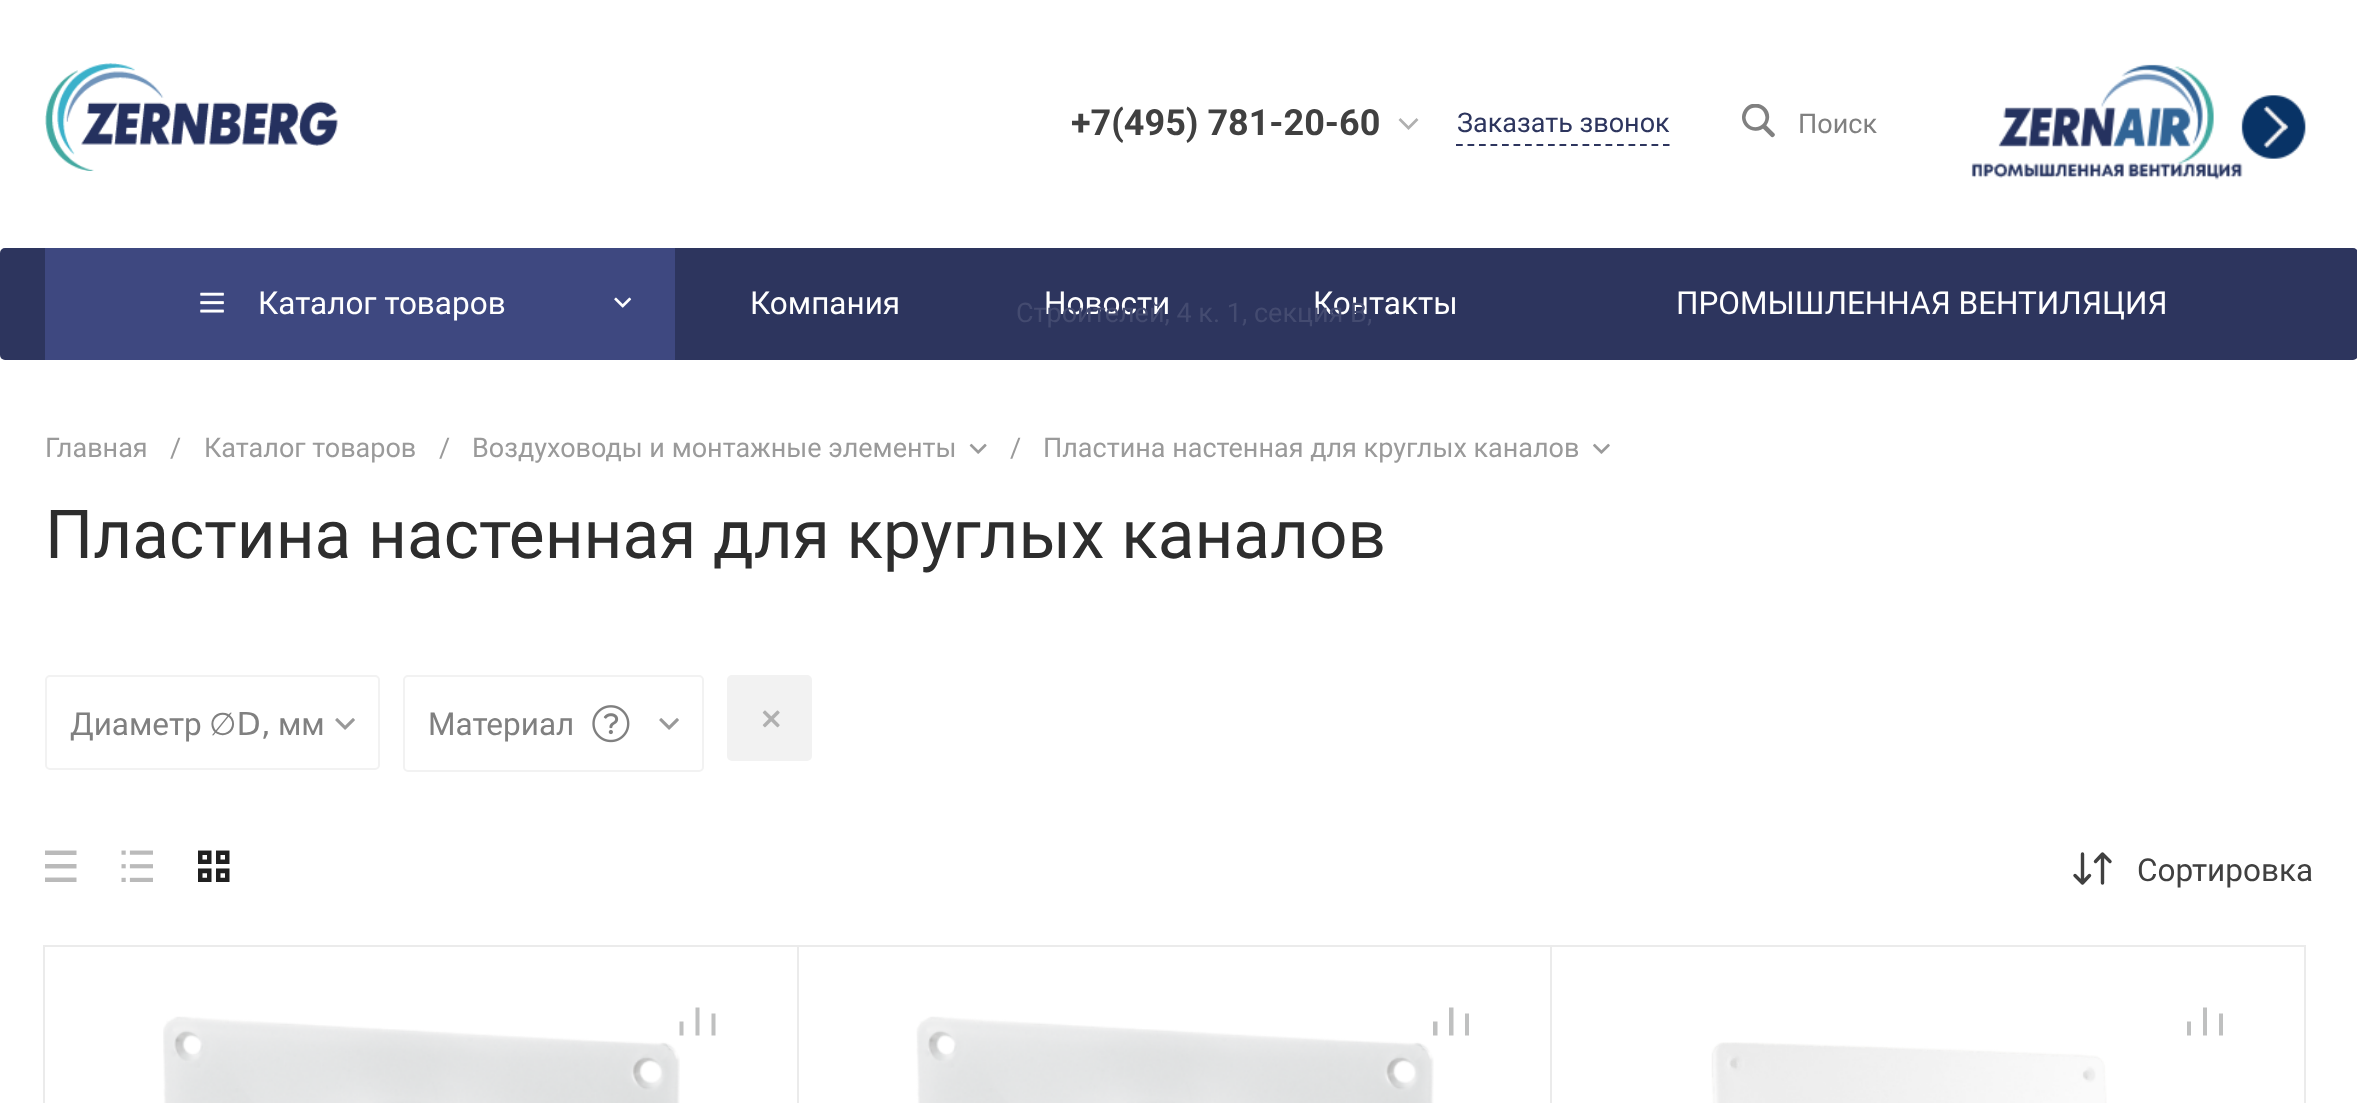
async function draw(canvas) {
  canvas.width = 2357
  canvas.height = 1103
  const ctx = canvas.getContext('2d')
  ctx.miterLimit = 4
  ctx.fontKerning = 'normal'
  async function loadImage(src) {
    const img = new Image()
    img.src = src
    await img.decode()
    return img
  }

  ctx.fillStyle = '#fff'
  ctx.fillRect(0, 0, 2357, 1103)
  ctx.drawImage(await loadImage('image0.png'), 45, 63, 293, 108)
  ctx.font = 'bold 36px Roboto'
  ctx.fillStyle = '#404040'
  ctx.fillText('+7(495) 781-20-60', 1071, 135)
  ctx.beginPath()
  ctx.moveTo(1399.5, 119)
  ctx.lineTo(1408.5, 128)
  ctx.lineTo(1417.5, 119)
  ctx.strokeStyle = '#b0b0b0'
  ctx.lineWidth = 2.7
  ctx.stroke()
  ctx.fillStyle = '#2d355e'
  ctx.beginPath()
  ctx.roundRect(0, 248, 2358, 112, 5)
  ctx.fill()
  ctx.font = '31.5px Roboto'
  ctx.fillStyle = '#fff'
  ctx.fillText('Новости', 1044, 314)
  ctx.fillText('Контакты', 1313, 314)
  ctx.font = '27px Roboto'
  ctx.fillStyle = '#444b70'
  ctx.fillText('Строителей, 4 к. 1, секция В,', 1016, 322)
  ctx.beginPath()
  ctx.moveTo(1456, 145)
  ctx.lineTo(1669.5, 145)
  ctx.strokeStyle = '#2d355e'
  ctx.lineWidth = 2.2
  ctx.setLineDash([6.75, 4.75])
  ctx.stroke()
  ctx.fillStyle = '#2d355e'
  ctx.fillText('Заказать звонок', 1457, 132)
  ctx.drawImage(await loadImage('image1.png'), 1742, 104, 33, 34)
  ctx.fillStyle = '#808080'
  ctx.fillText('Поиск', 1798, 133)
  ctx.drawImage(await loadImage('image2.png'), 1971, 64, 335, 116)
  ctx.fillStyle = '#3e4880'
  ctx.fillRect(45, 248, 630, 112)
  ctx.drawImage(await loadImage('image3.png'), 200, 292, 24, 21)
  ctx.font = '31.5px Roboto'
  ctx.fillStyle = '#fff'
  ctx.fillText('Каталог товаров', 258, 314)
  ctx.drawImage(await loadImage('image4.png'), 614, 297, 18, 11)
  ctx.fillText('Компания', 750, 314)
  ctx.fillText('ПРОМЫШЛЕННАЯ ВЕНТИЛЯЦИЯ', 1676, 314)
  ctx.font = '27px Roboto'
  ctx.fillStyle = '#9a9a9a'
  ctx.fillText('Главная', 45, 457)
  ctx.fillText('/', 170, 457)
  ctx.fillText('Каталог товаров', 204, 457)
  ctx.fillText('/', 439, 457)
  ctx.fillText('Воздуховоды и монтажные элементы', 472, 457)
  ctx.drawImage(await loadImage('image5.png'), 969, 443, 18, 11)
  ctx.fillText('/', 1010, 457)
  ctx.fillText('Пластина настенная для круглых каналов', 1043, 457)
  ctx.drawImage(await loadImage('image6.png'), 1593, 443, 17, 11)
  ctx.font = '67.5px Roboto'
  ctx.fillStyle = '#2d2d2d'
  ctx.fillText('Пластина настенная для круглых каналов', 45, 558)
  ctx.beginPath()
  ctx.roundRect(46, 676, 333, 93, 4)
  ctx.strokeStyle = '#f2f2f2'
  ctx.lineWidth = 2
  ctx.setLineDash([])
  ctx.stroke()
  ctx.font = '31.5px Roboto'
  ctx.fillStyle = '#808080'
  ctx.fillText('Диаметр', 70, 735)
  ctx.font = '31.5px DejaVu Sans'
  ctx.fillText('∅D,', 209, 735)
  ctx.font = '31.5px Roboto'
  ctx.fillText('мм', 278, 735)
  ctx.drawImage(await loadImage('image7.png'), 335, 718, 20, 12)
  ctx.beginPath()
  ctx.roundRect(404, 676, 299, 95, 4)
  ctx.stroke()
  ctx.fillText('Материал', 428, 735)
  ctx.drawImage(await loadImage('image8.png'), 592, 705, 38, 38)
  ctx.drawImage(await loadImage('image7.png'), 659, 718, 20, 12)
  ctx.fillStyle = '#f2f2f2'
  ctx.beginPath()
  ctx.roundRect(727, 675, 85, 86, 5)
  ctx.fill()
  ctx.drawImage(await loadImage('image9.png'), 762, 710, 18, 18)
  ctx.drawImage(await loadImage('image10.png'), 45, 850, 32, 32)
  ctx.drawImage(await loadImage('image11.png'), 121, 850, 32, 32)
  ctx.drawImage(await loadImage('image12.png'), 198, 850, 32, 32)
  ctx.beginPath()
  ctx.moveTo(2075, 875.5)
  ctx.lineTo(2082.5, 883)
  ctx.lineTo(2089.5, 875.5)
  ctx.moveTo(2082.5, 854)
  ctx.lineTo(2082.5, 883)
  ctx.moveTo(2110, 861.5)
  ctx.lineTo(2102.5, 854)
  ctx.lineTo(2095.5, 861.5)
  ctx.moveTo(2102.5, 883)
  ctx.lineTo(2102.5, 854)
  ctx.strokeStyle = '#404040'
  ctx.lineWidth = 3.4
  ctx.lineCap = 'round'
  ctx.lineJoin = 'round'
  ctx.stroke()
  ctx.fillStyle = '#404040'
  ctx.fillText('Сортировка', 2137, 881)
  ctx.strokeStyle = '#ebebeb'
  ctx.lineWidth = 2
  ctx.lineJoin = 'miter'
  ctx.strokeRect(44, 946, 754, 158)
  ctx.drawImage(await loadImage('image13.png'), 163, 1016, 517, 87)
  ctx.fillStyle = '#ffffff66'
  ctx.beginPath()
  ctx.roundRect(666, 992, 63, 59, 11)
  ctx.fill()
  ctx.fillStyle = '#bfc0c0'
  ctx.beginPath()
  ctx.moveTo(679.5, 1035.5)
  ctx.lineTo(683.5, 1035.5)
  ctx.lineTo(683.5, 1021.5)
  ctx.lineTo(679.5, 1021.5)
  ctx.closePath()
  ctx.moveTo(695.5, 1035.5)
  ctx.lineTo(699.5, 1035.5)
  ctx.lineTo(699.5, 1007.5)
  ctx.lineTo(695.5, 1007.5)
  ctx.closePath()
  ctx.moveTo(711.5, 1013.5)
  ctx.lineTo(715.5, 1013.5)
  ctx.lineTo(715.5, 1035.5)
  ctx.lineTo(711.5, 1035.5)
  ctx.closePath()
  ctx.fill()
  ctx.strokeRect(798, 946, 754, 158)
  ctx.drawImage(await loadImage('image14.png'), 916, 1016, 518, 87)
  ctx.fillStyle = '#ffffff66'
  ctx.beginPath()
  ctx.roundRect(1420, 992, 63, 59, 11)
  ctx.fill()
  ctx.fillStyle = '#bfc0c0'
  ctx.beginPath()
  ctx.moveTo(1433, 1035.5)
  ctx.lineTo(1437.5, 1035.5)
  ctx.lineTo(1437.5, 1021.5)
  ctx.lineTo(1433, 1021.5)
  ctx.closePath()
  ctx.moveTo(1449, 1035.5)
  ctx.lineTo(1453.5, 1035.5)
  ctx.lineTo(1453.5, 1007.5)
  ctx.lineTo(1449, 1007.5)
  ctx.closePath()
  ctx.moveTo(1465, 1013.5)
  ctx.lineTo(1469, 1013.5)
  ctx.lineTo(1469, 1035.5)
  ctx.lineTo(1465, 1035.5)
  ctx.closePath()
  ctx.fill()
  ctx.fillStyle = '#fff'
  ctx.fillRect(1552, 947, 1, 156)
  ctx.strokeRect(1551, 946, 754, 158)
  ctx.fillStyle = '#bfc0c0'
  ctx.beginPath()
  ctx.moveTo(2187, 1035.5)
  ctx.lineTo(2191, 1035.5)
  ctx.lineTo(2191, 1021.5)
  ctx.lineTo(2187, 1021.5)
  ctx.closePath()
  ctx.moveTo(2203, 1035.5)
  ctx.lineTo(2207, 1035.5)
  ctx.lineTo(2207, 1007.5)
  ctx.lineTo(2203, 1007.5)
  ctx.closePath()
  ctx.moveTo(2219, 1013.5)
  ctx.lineTo(2223, 1013.5)
  ctx.lineTo(2223, 1035.5)
  ctx.lineTo(2219, 1035.5)
  ctx.closePath()
  ctx.fill()
  ctx.drawImage(await loadImage('image15.png'), 1711, 1042, 396, 61)
}

draw(document.querySelector('canvas'))
